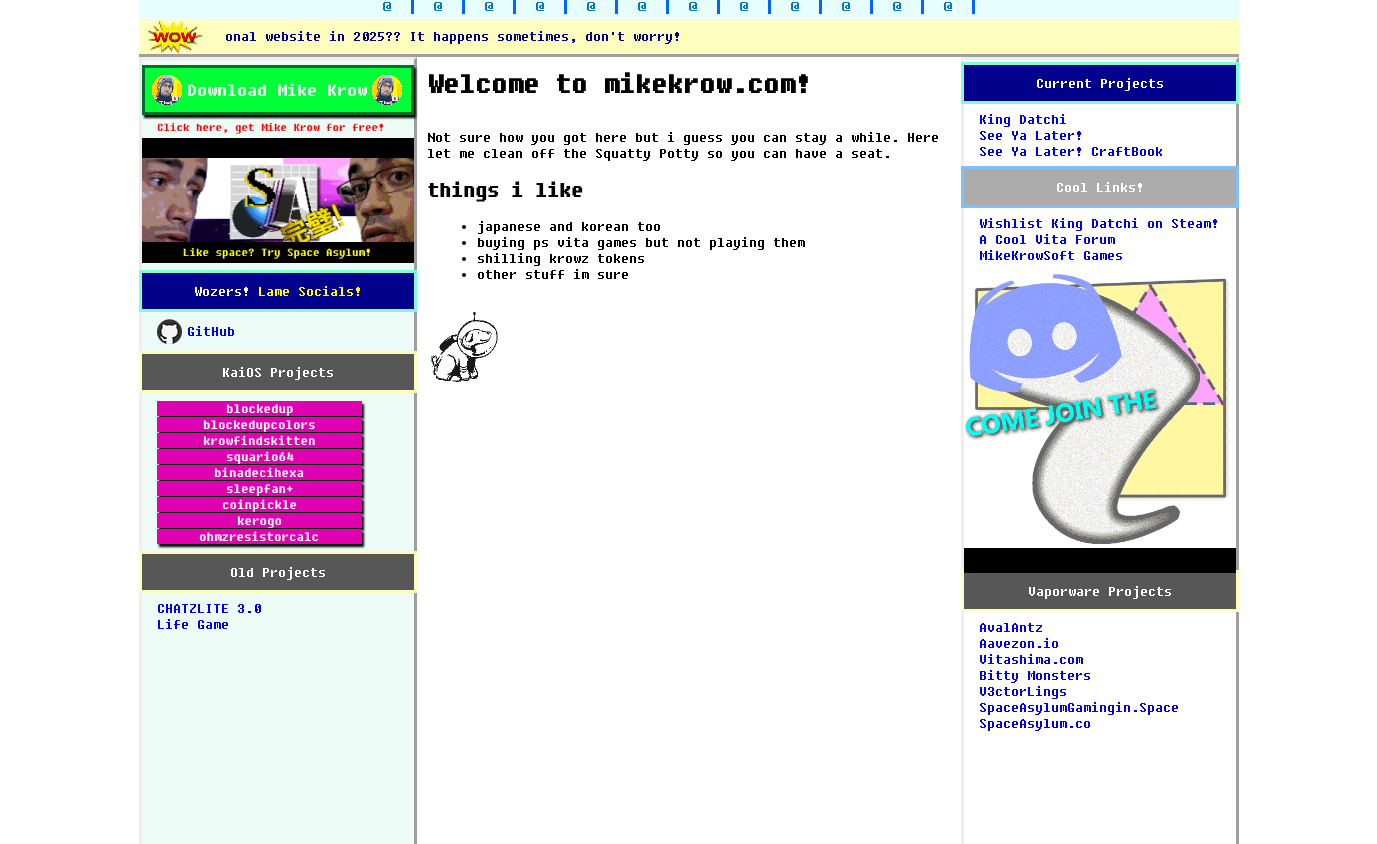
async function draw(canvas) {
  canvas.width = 1377
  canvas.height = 844
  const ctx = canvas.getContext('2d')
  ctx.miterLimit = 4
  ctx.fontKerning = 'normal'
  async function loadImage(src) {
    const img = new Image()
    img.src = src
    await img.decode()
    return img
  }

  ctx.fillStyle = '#fff'
  ctx.fillRect(0, 0, 1377, 844)
  ctx.fillStyle = '#e7feff'
  ctx.fillRect(139, 0, 1100, 19)
  ctx.fillStyle = '#06f'
  ctx.fillRect(411, 0, 3, 14)
  ctx.font = '16px "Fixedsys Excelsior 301"'
  ctx.fillStyle = '#017ac0'
  ctx.fillText('@', 383, 11)
  ctx.fillStyle = '#06f'
  ctx.fillRect(462, 0, 3, 14)
  ctx.fillStyle = '#017ac0'
  ctx.fillText('@', 434, 11)
  ctx.fillStyle = '#06f'
  ctx.fillRect(513, 0, 3, 14)
  ctx.fillStyle = '#017ac0'
  ctx.fillText('@', 485, 11)
  ctx.fillStyle = '#06f'
  ctx.fillRect(564, 0, 3, 14)
  ctx.fillStyle = '#017ac0'
  ctx.fillText('@', 536, 11)
  ctx.fillStyle = '#06f'
  ctx.fillRect(615, 0, 3, 14)
  ctx.fillStyle = '#017ac0'
  ctx.fillText('@', 587, 11)
  ctx.fillStyle = '#06f'
  ctx.fillRect(666, 0, 3, 14)
  ctx.fillStyle = '#017ac0'
  ctx.fillText('@', 638, 11)
  ctx.fillStyle = '#06f'
  ctx.fillRect(717, 0, 3, 14)
  ctx.fillStyle = '#017ac0'
  ctx.fillText('@', 689, 11)
  ctx.fillStyle = '#06f'
  ctx.fillRect(768, 0, 3, 14)
  ctx.fillStyle = '#017ac0'
  ctx.fillText('@', 740, 11)
  ctx.fillStyle = '#06f'
  ctx.fillRect(819, 0, 3, 14)
  ctx.fillStyle = '#017ac0'
  ctx.fillText('@', 791, 11)
  ctx.fillStyle = '#06f'
  ctx.fillRect(870, 0, 3, 14)
  ctx.fillStyle = '#017ac0'
  ctx.fillText('@', 842, 11)
  ctx.fillStyle = '#06f'
  ctx.fillRect(921, 0, 3, 14)
  ctx.fillStyle = '#017ac0'
  ctx.fillText('@', 893, 11)
  ctx.fillStyle = '#06f'
  ctx.fillRect(972, 0, 3, 14)
  ctx.fillStyle = '#017ac0'
  ctx.fillText('@', 944, 11)
  ctx.fillStyle = '#feffbf'
  ctx.fillRect(139, 19, 1100, 35)
  ctx.fillStyle = '#9f9f9f'
  ctx.fillRect(139, 54, 1100, 3)
  ctx.drawImage(await loadImage('image0.png'), 147, 20, 57, 34)
  ctx.fillStyle = '#00008b'
  ctx.fillText('onal website in 2025?? It happens sometimes, don\'t worry!', 225, 41)
  ctx.fillStyle = '#eefcf7'
  ctx.fillRect(139, 57, 278, 787)
  ctx.fillStyle = '#eee'
  ctx.beginPath()
  ctx.moveTo(139, 57)
  ctx.lineTo(417, 57)
  ctx.lineTo(414, 60)
  ctx.lineTo(142, 60)
  ctx.closePath()
  ctx.fill()
  ctx.fillStyle = '#9f9f9f'
  ctx.beginPath()
  ctx.moveTo(417, 57)
  ctx.lineTo(417, 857)
  ctx.lineTo(414, 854)
  ctx.lineTo(414, 60)
  ctx.closePath()
  ctx.fill()
  ctx.fillStyle = '#eee'
  ctx.beginPath()
  ctx.moveTo(139, 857)
  ctx.lineTo(139, 57)
  ctx.lineTo(142, 60)
  ctx.lineTo(142, 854)
  ctx.closePath()
  ctx.fill()
  ctx.fillStyle = '#000'
  ctx.filter = 'blur(1px)'
  ctx.beginPath()
  ctx.rect(144, 68, 272, 50)
  ctx.fill()
  ctx.filter = 'none'
  ctx.fillStyle = '#00ff37'
  ctx.beginPath()
  ctx.rect(143.5, 66.5, 269, 47)
  ctx.fill()
  ctx.strokeStyle = '#006e2a'
  ctx.lineWidth = 3
  ctx.stroke()
  ctx.drawImage(await loadImage('image1.png'), 152, 75, 30, 30)
  ctx.font = '20px "Fixedsys Excelsior 301"'
  ctx.fillStyle = '#fff'
  ctx.fillText('Download Mike Krow', 187, 96)
  ctx.drawImage(await loadImage('image1.png'), 372, 75, 30, 30)
  ctx.font = '13px "Fixedsys Excelsior 301"'
  ctx.fillStyle = '#f00'
  ctx.fillText('Click here, get Mike Krow for free!', 157, 131)
  ctx.fillStyle = '#000'
  ctx.fillRect(142, 138, 272, 125)
  ctx.drawImage(await loadImage('image2.png'), 142, 158, 272, 84)
  ctx.fillStyle = '#ff0'
  ctx.fillText('Like space? Try Space Asylum!', 183, 256)
  ctx.fillStyle = '#00008b'
  ctx.fillRect(142, 273, 272, 36)
  ctx.strokeStyle = '#7fffd4'
  ctx.strokeRect(140.5, 271.5, 275, 39)
  ctx.font = '16px "Fixedsys Excelsior 301"'
  ctx.fillStyle = '#fff'
  ctx.fillText('Wozers!', 194, 296)
  ctx.fillStyle = '#ff0'
  ctx.fillText('Lame Socials!', 258, 296)
  ctx.drawImage(await loadImage('image3.png'), 157, 319, 25, 25)
  ctx.fillStyle = '#00e'
  ctx.fillText('GitHub', 187, 336)
  ctx.fillStyle = '#575757'
  ctx.fillRect(142, 354, 272, 36)
  ctx.strokeStyle = '#fffebb'
  ctx.strokeRect(140.5, 352.5, 275, 39)
  ctx.fillStyle = '#fff'
  ctx.fillText('KaiOS Projects', 222, 377)
  ctx.fillStyle = '#000'
  ctx.filter = 'blur(1px)'
  ctx.beginPath()
  ctx.rect(159, 404, 205, 15)
  ctx.fill()
  ctx.filter = 'none'
  ctx.fillStyle = '#e000b0'
  ctx.fillRect(157, 401, 205, 15)
  ctx.font = '15px "Fixedsys Excelsior 301"'
  ctx.fillStyle = '#fff'
  ctx.fillText('blockedup', 226, 413)
  ctx.fillStyle = '#000'
  ctx.filter = 'blur(1px)'
  ctx.beginPath()
  ctx.rect(159, 420, 205, 15)
  ctx.fill()
  ctx.filter = 'none'
  ctx.fillStyle = '#e000b0'
  ctx.fillRect(157, 417, 205, 15)
  ctx.fillStyle = '#fff'
  ctx.fillText('blockedupcolors', 203, 429)
  ctx.fillStyle = '#000'
  ctx.filter = 'blur(1px)'
  ctx.beginPath()
  ctx.rect(159, 436, 205, 15)
  ctx.fill()
  ctx.filter = 'none'
  ctx.fillStyle = '#e000b0'
  ctx.fillRect(157, 433, 205, 15)
  ctx.fillStyle = '#fff'
  ctx.fillText('krowfindskitten', 203, 445)
  ctx.fillStyle = '#000'
  ctx.filter = 'blur(1px)'
  ctx.beginPath()
  ctx.rect(159, 452, 205, 15)
  ctx.fill()
  ctx.filter = 'none'
  ctx.fillStyle = '#e000b0'
  ctx.fillRect(157, 449, 205, 15)
  ctx.fillStyle = '#fff'
  ctx.fillText('squario64', 226, 461)
  ctx.fillStyle = '#000'
  ctx.filter = 'blur(1px)'
  ctx.beginPath()
  ctx.rect(159, 468, 205, 15)
  ctx.fill()
  ctx.filter = 'none'
  ctx.fillStyle = '#e000b0'
  ctx.fillRect(157, 465, 205, 15)
  ctx.fillStyle = '#fff'
  ctx.fillText('binadecihexa', 214, 477)
  ctx.fillStyle = '#000'
  ctx.filter = 'blur(1px)'
  ctx.beginPath()
  ctx.rect(159, 484, 205, 15)
  ctx.fill()
  ctx.filter = 'none'
  ctx.fillStyle = '#e000b0'
  ctx.fillRect(157, 481, 205, 15)
  ctx.fillStyle = '#fff'
  ctx.fillText('sleepfan+', 226, 493)
  ctx.fillStyle = '#000'
  ctx.filter = 'blur(1px)'
  ctx.beginPath()
  ctx.rect(159, 500, 205, 15)
  ctx.fill()
  ctx.filter = 'none'
  ctx.fillStyle = '#e000b0'
  ctx.fillRect(157, 497, 205, 15)
  ctx.fillStyle = '#fff'
  ctx.fillText('coinpickle', 222, 509)
  ctx.fillStyle = '#000'
  ctx.filter = 'blur(1px)'
  ctx.beginPath()
  ctx.rect(159, 516, 205, 15)
  ctx.fill()
  ctx.filter = 'none'
  ctx.fillStyle = '#e000b0'
  ctx.fillRect(157, 513, 205, 15)
  ctx.fillStyle = '#fff'
  ctx.fillText('kerogo', 237, 525)
  ctx.fillStyle = '#000'
  ctx.filter = 'blur(1px)'
  ctx.beginPath()
  ctx.rect(159, 532, 205, 15)
  ctx.fill()
  ctx.filter = 'none'
  ctx.fillStyle = '#e000b0'
  ctx.fillRect(157, 529, 205, 15)
  ctx.fillStyle = '#fff'
  ctx.fillText('ohmzresistorcalc', 199, 541)
  ctx.fillStyle = '#575757'
  ctx.fillRect(142, 554, 272, 36)
  ctx.strokeRect(140.5, 552.5, 275, 39)
  ctx.font = '16px "Fixedsys Excelsior 301"'
  ctx.fillStyle = '#fff'
  ctx.fillText('Old Projects', 230, 577)
  ctx.fillStyle = '#00e'
  ctx.fillText('CHATZLITE 3.0', 157, 613)
  ctx.fillText('Life Game', 157, 629)
  ctx.font = 'bold 32px "Fixedsys Excelsior 301"'
  ctx.fillStyle = '#000'
  ctx.fillText('Welcome to mikekrow.com!', 427, 93)
  ctx.font = '16px "Fixedsys Excelsior 301"'
  ctx.fillText('Not sure how you got here but i guess you can stay a while. Here', 427, 142)
  ctx.fillText('let me clean off the Squatty Potty so you can have a seat.', 427, 158)
  ctx.font = 'bold 24px "Fixedsys Excelsior 301"'
  ctx.fillText('things i like', 427, 197)
  ctx.beginPath()
  ctx.arc(464, 227, 2, 0, 2 * Math.PI)
  ctx.fill()
  ctx.font = '16px "Fixedsys Excelsior 301"'
  ctx.fillText('japanese and korean too', 477, 231)
  ctx.beginPath()
  ctx.arc(464, 243, 2, 0, 2 * Math.PI)
  ctx.fill()
  ctx.fillText('buying ps vita games but not playing them', 477, 247)
  ctx.beginPath()
  ctx.arc(464, 259, 2, 0, 2 * Math.PI)
  ctx.fill()
  ctx.fillText('shilling krowz tokens', 477, 263)
  ctx.beginPath()
  ctx.arc(464, 275, 2, 0, 2 * Math.PI)
  ctx.fill()
  ctx.fillText('other stuff im sure', 477, 279)
  ctx.drawImage(await loadImage('image4.png'), 431, 312, 67, 70)
  ctx.fillStyle = '#eee'
  ctx.beginPath()
  ctx.moveTo(961, 57)
  ctx.lineTo(1239, 57)
  ctx.lineTo(1236, 60)
  ctx.lineTo(964, 60)
  ctx.closePath()
  ctx.fill()
  ctx.fillStyle = '#9f9f9f'
  ctx.beginPath()
  ctx.moveTo(1239, 57)
  ctx.lineTo(1239, 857)
  ctx.lineTo(1236, 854)
  ctx.lineTo(1236, 60)
  ctx.closePath()
  ctx.fill()
  ctx.fillStyle = '#eee'
  ctx.beginPath()
  ctx.moveTo(961, 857)
  ctx.lineTo(961, 57)
  ctx.lineTo(964, 60)
  ctx.lineTo(964, 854)
  ctx.closePath()
  ctx.fill()
  ctx.fillStyle = '#00008b'
  ctx.fillRect(964, 65, 272, 36)
  ctx.strokeStyle = '#7fffd4'
  ctx.strokeRect(962.5, 63.5, 275, 39)
  ctx.fillStyle = '#fff'
  ctx.fillText('Current Projects', 1036, 88)
  ctx.fillStyle = '#00e'
  ctx.fillText('King Datchi', 979, 124)
  ctx.fillText('See Ya Later!', 979, 140)
  ctx.fillText('See Ya Later! CraftBook', 979, 156)
  ctx.fillStyle = '#acacac'
  ctx.fillRect(964, 169, 272, 36)
  ctx.strokeStyle = '#7fc1ff'
  ctx.strokeRect(962.5, 167.5, 275, 39)
  ctx.fillStyle = '#fff'
  ctx.fillText('Cool Links!', 1056, 192)
  ctx.fillStyle = '#00e'
  ctx.fillText('Wishlist King Datchi on Steam!', 979, 228)
  ctx.fillText('A Cool Vita Forum', 979, 244)
  ctx.fillText('MikeKrowSoft Games', 979, 260)
  ctx.drawImage(await loadImage('image5.png'), 964, 274, 266, 270)
  ctx.fillStyle = '#575757'
  ctx.fillRect(964, 573, 272, 36)
  ctx.strokeStyle = '#fffebb'
  ctx.strokeRect(962.5, 571.5, 275, 39)
  ctx.fillStyle = '#000'
  ctx.fillRect(964, 548, 272, 25)
  ctx.fillStyle = '#fff'
  ctx.fillText('Vaporware Projects', 1028, 596)
  ctx.fillStyle = '#00e'
  ctx.fillText('AvalAntz', 979, 632)
  ctx.fillText('Aavezon.io', 979, 648)
  ctx.fillText('Vitashima.com', 979, 664)
  ctx.fillText('Bitty Monsters', 979, 680)
  ctx.fillText('V3ctorLings', 979, 696)
  ctx.fillText('SpaceAsylumGamingin.Space', 979, 712)
  ctx.fillText('SpaceAsylum.co', 979, 728)
}

draw(document.querySelector('canvas'))
